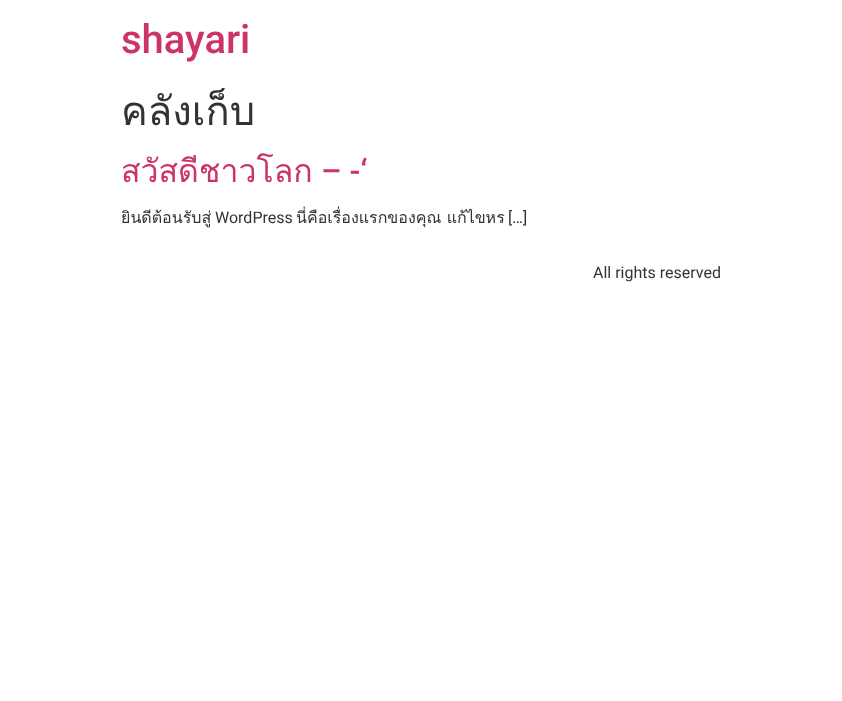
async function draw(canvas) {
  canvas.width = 842
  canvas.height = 701
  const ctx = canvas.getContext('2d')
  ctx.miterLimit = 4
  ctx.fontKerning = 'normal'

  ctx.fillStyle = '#fff'
  ctx.fillRect(0, 0, 842, 701)
  ctx.font = '500 40px Roboto'
  ctx.fillStyle = '#c36'
  ctx.fillText('shayari', 121, 53)
  ctx.font = '40px Loma'
  ctx.fillStyle = '#333'
  ctx.fillText('คลังเก็บ', 121, 125)
  ctx.font = '32px Loma'
  ctx.fillStyle = '#c36'
  ctx.fillText('สวัสดีชาวโลก', 121, 182)
  ctx.font = '500 32px Roboto'
  ctx.fillText('– -‘', 321, 182)
  ctx.font = '16px Loma'
  ctx.fillStyle = '#333'
  ctx.fillText('ยินดีต้อนรับสู่', 121, 223)
  ctx.font = '16px Roboto'
  ctx.fillText('WordPress', 215, 223)
  ctx.font = '16px Loma'
  ctx.fillText('นี่คือเรื่องแรกของคุณ แก้ไขหร', 296, 223)
  ctx.font = '16px Roboto'
  ctx.fillText('[…]', 508, 223)
  ctx.fillText('All rights reserved', 593, 278)
}

draw(document.querySelector('canvas'))
